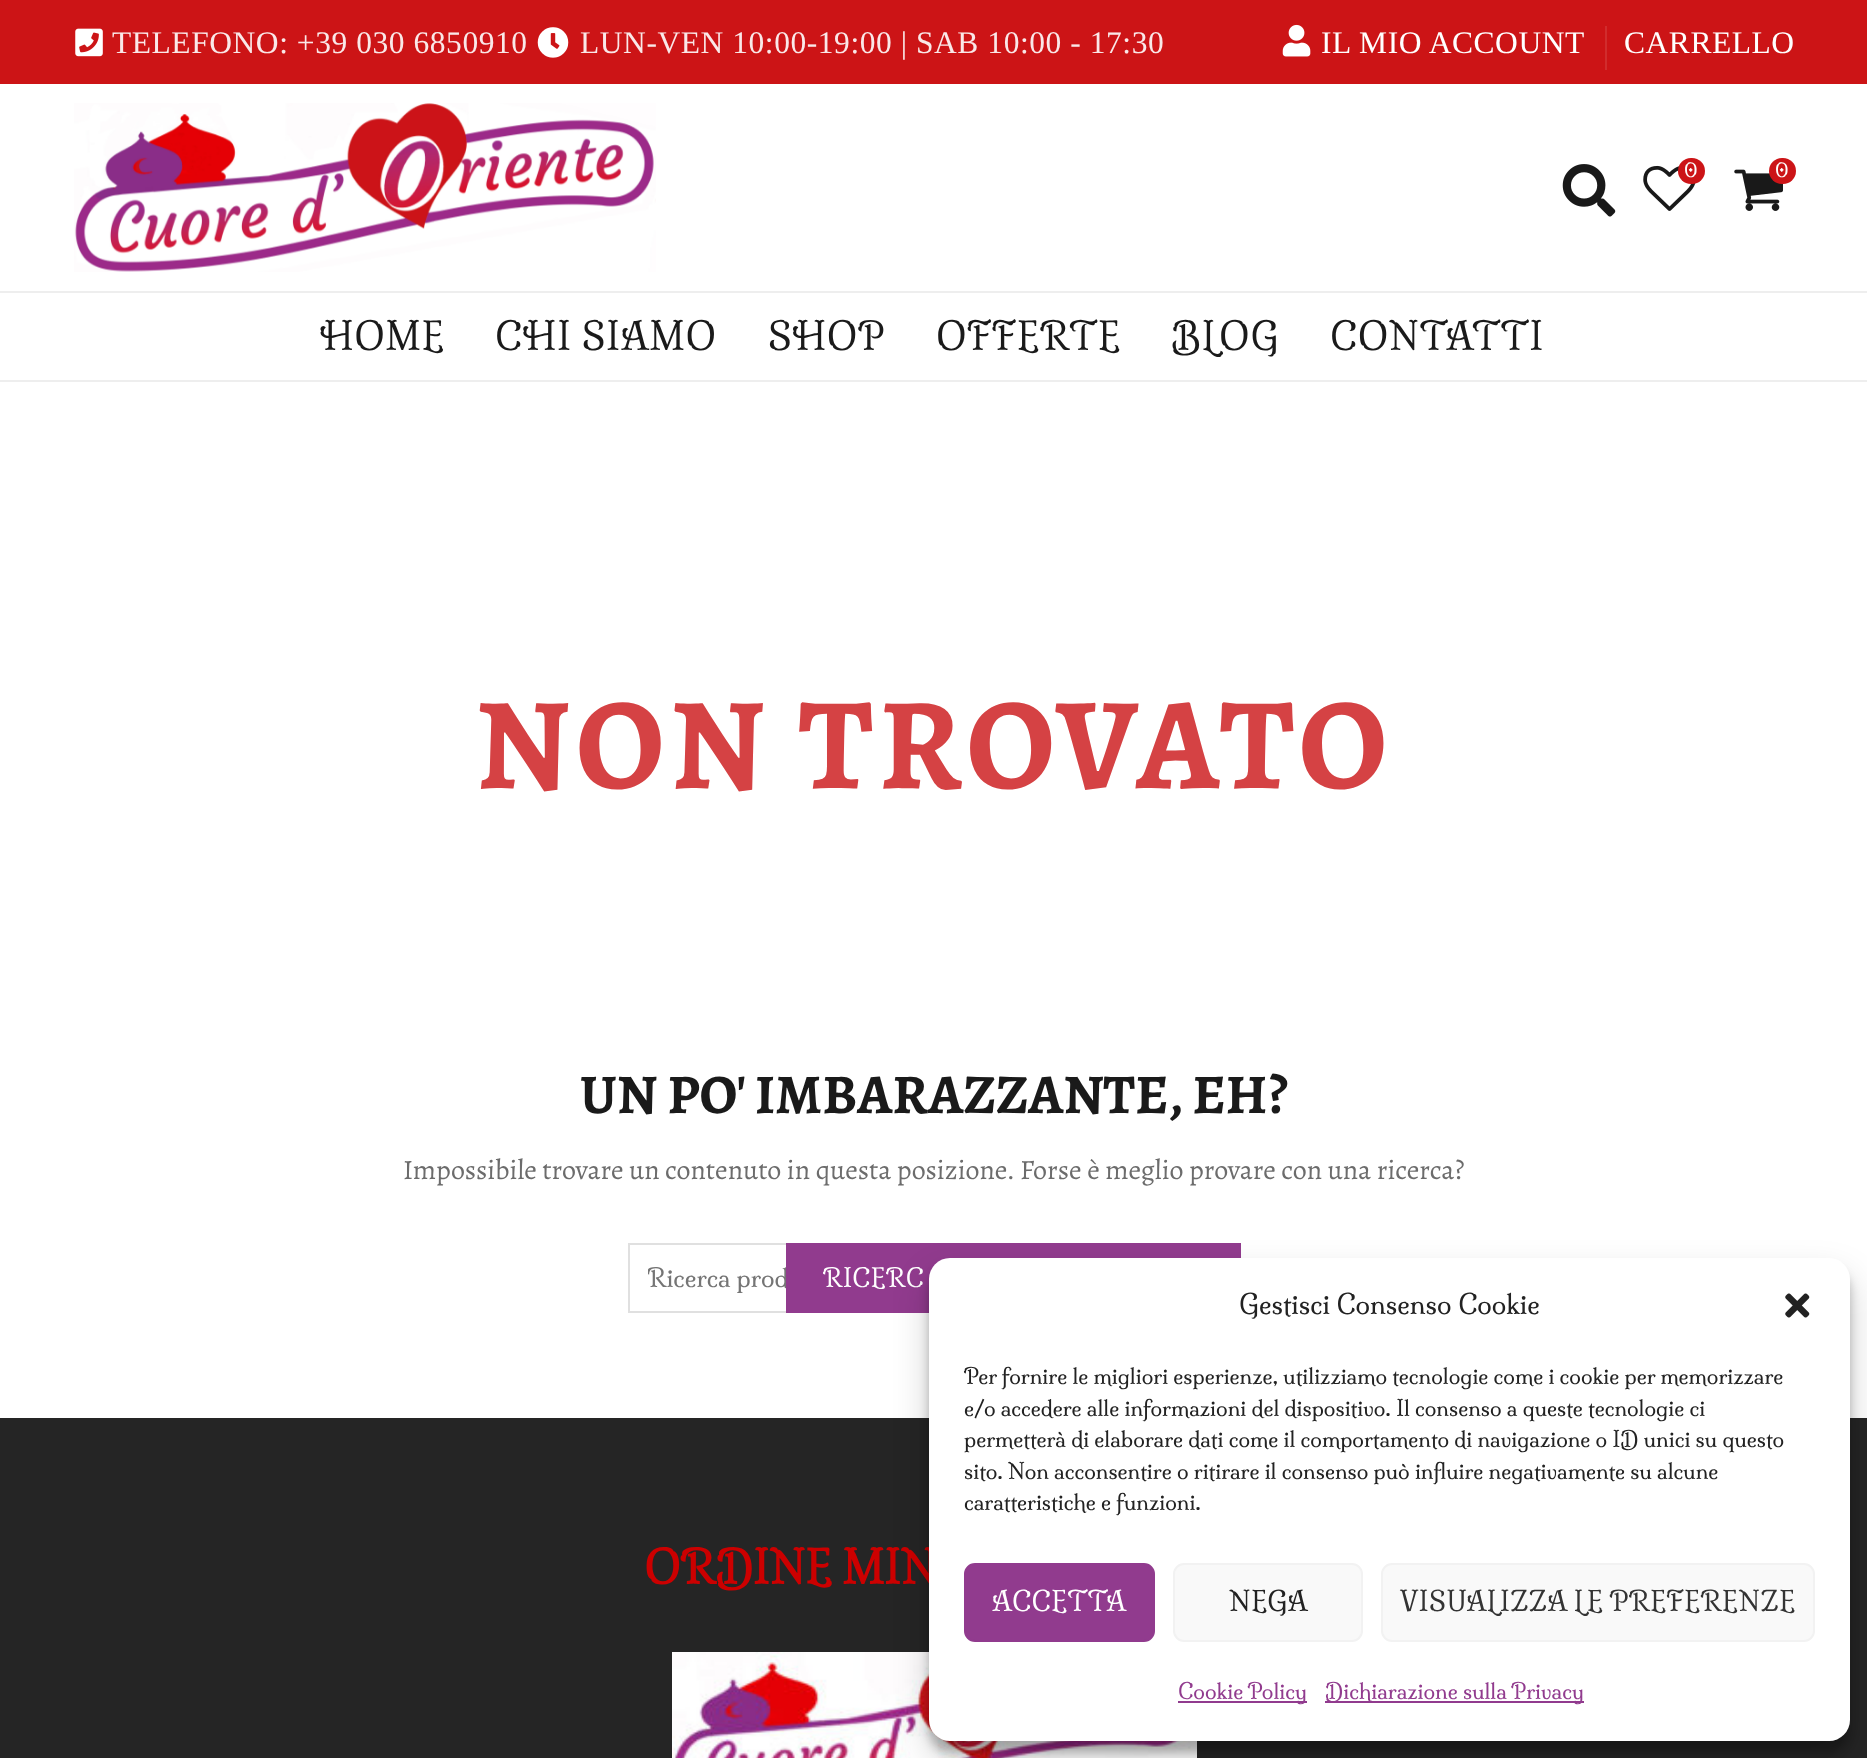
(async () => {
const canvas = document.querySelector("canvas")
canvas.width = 1867
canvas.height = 1758
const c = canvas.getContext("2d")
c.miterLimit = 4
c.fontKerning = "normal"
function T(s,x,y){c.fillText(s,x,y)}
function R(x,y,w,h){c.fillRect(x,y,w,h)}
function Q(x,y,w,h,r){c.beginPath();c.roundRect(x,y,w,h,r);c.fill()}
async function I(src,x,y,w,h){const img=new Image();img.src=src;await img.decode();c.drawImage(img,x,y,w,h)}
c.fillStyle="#fff"
R(0,0,1867,1758)
c.fillStyle="#cc1416"
R(0,0,1867,84)
await I("1.png",75,28,28,29)
c.letterSpacing="0.55px"
c.font="31.5px Liberation Serif"
c.fillStyle="#fae8e8"
T("TELEFONO: +39 030 6850910",112,53)
await I("2.png",537,27,32,31)
T("LUN-VEN 10:00-19:00 | SAB 10:00 - 17:30",580,53)
await I("3.png",1282,24,29,33)
c.fillStyle="#fff"
T("IL MIO ACCOUNT",1321,53)
c.fillStyle="#d12c2d"
R(1605,26,2,44)
c.fillStyle="#fff"
T("CARRELLO",1624,53)
await I("4.png",74,103,582,169)
await I("5.png",1562,164,54,53)
await I("6.png",1643,165,53,46)
c.fillStyle="#cc1417"
Q(1678,158,27,26,13)
c.letterSpacing="0px"
c.font="18px Milonga"
c.fillStyle="#fff"
T("0",1684,177)
await I("7.png",1734,169,49,42)
c.fillStyle="#cc1417"
Q(1769,158,27,26,13)
c.fillStyle="#fff"
T("0",1775,177)
c.fillStyle="#eee"
R(0,291,1867,2)
R(0,380,1867,2)
c.letterSpacing="0.9px"
c.font="36.75px Milonga"
c.fillStyle="#1a1a1a"
T("HOME",320,350)
T("CHI SIAMO",495,350)
T("SHOP",768,350)
T("OFFERTE",936,350)
T("BLOG",1171,350)
T("CONTATTI",1330,350)
c.letterSpacing="5.25px"
c.font="bold 131.25px Alegreya"
c.fillStyle="#d54244"
T("NON TROVATO",475,788)
c.letterSpacing="0px"
c.font="bold 56px Alegreya"
c.fillStyle="#1a1a1a"
T("UN PO' IMBARAZZANTE, EH?",580,1113)
c.font="28px Alegreya"
c.fillStyle="#6c6c6c"
T("Impossibile trovare un contenuto in questa posizione. Forse è meglio provare con una ricerca?",403,1179)
c.strokeStyle="#e0e0e0"
c.lineWidth=2
c.strokeRect(629,1244,611,68)
c.save()
c.beginPath()
c.rect(648,1262,407,31)
c.clip()
c.font="24.5px Milonga"
c.fillStyle="#757575"
T("Ricerca prod",647,1287)
c.restore()
c.fillStyle="#913b8e"
R(786,1243,455,70)
c.letterSpacing="0.55px"
c.font="24.5px Milonga"
c.fillStyle="#fff"
T("RICERC",823,1287)
c.fillStyle="#252525"
R(0,1418,1867,340)
c.letterSpacing="0px"
c.font="bold 43.75px Milonga"
c.fillStyle="#c00"
T("ORDINE MIN",644,1584)
await I("8.png",672,1652,525,106)
c.fillStyle="#0000003b"
c.filter="blur(5px)"
c.beginPath()
c.roundRect(929,1269,921,483,21)
c.fill()
c.filter="none"
c.fillStyle="#00000030"
c.filter="blur(17.5px)"
c.beginPath()
c.roundRect(929,1276,921,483,21)
c.fill()
c.filter="none"
c.fillStyle="#fff"
Q(929,1258,921,483,21)
c.font="26.25px Milonga"
c.fillStyle="#222"
T("Gestisci Consenso Cookie",1239,1314)
await I("9.png",1785,1293,25,25)
c.font="21px Milonga"
T("Per fornire le migliori esperienze, utilizziamo tecnologie come i cookie per memorizzare",964,1384)
T("e/o accedere alle informazioni del dispositivo. Il consenso a queste tecnologie ci",964,1416)
T("permetterà di elaborare dati come il comportamento di navigazione o ID unici su questo",964,1447)
T("sito. Non acconsentire o ritirare il consenso può influire negativamente su alcune",964,1479)
T("caratteristiche e funzioni.",964,1510)
c.fillStyle="#913b8e"
c.beginPath()
c.roundRect(965,1564,189,77,10)
c.fill()
c.strokeStyle="#913b8e"
c.stroke()
c.letterSpacing="0.55px"
c.font="26.25px Milonga"
c.fillStyle="#fff"
T("ACCETTA",992,1611)
c.fillStyle="#f9f9f9"
c.beginPath()
c.roundRect(1174,1564,188,77,10)
c.fill()
c.strokeStyle="#f2f2f2"
c.stroke()
c.fillStyle="#222"
T("NEGA",1229,1611)
c.fillStyle="#f9f9f9"
c.beginPath()
c.roundRect(1382,1564,432,77,10)
c.fill()
c.stroke()
c.fillStyle="#333"
T("VISUALIZZA LE PREFERENZE",1400,1611)
c.fillStyle="#913b8e"
R(1178,1701,129,2)
c.letterSpacing="0px"
c.font="21px Milonga"
T("Cookie Policy",1178,1699)
R(1325,1701,259,2)
T("Dichiarazione sulla Privacy",1325,1699)
})()
